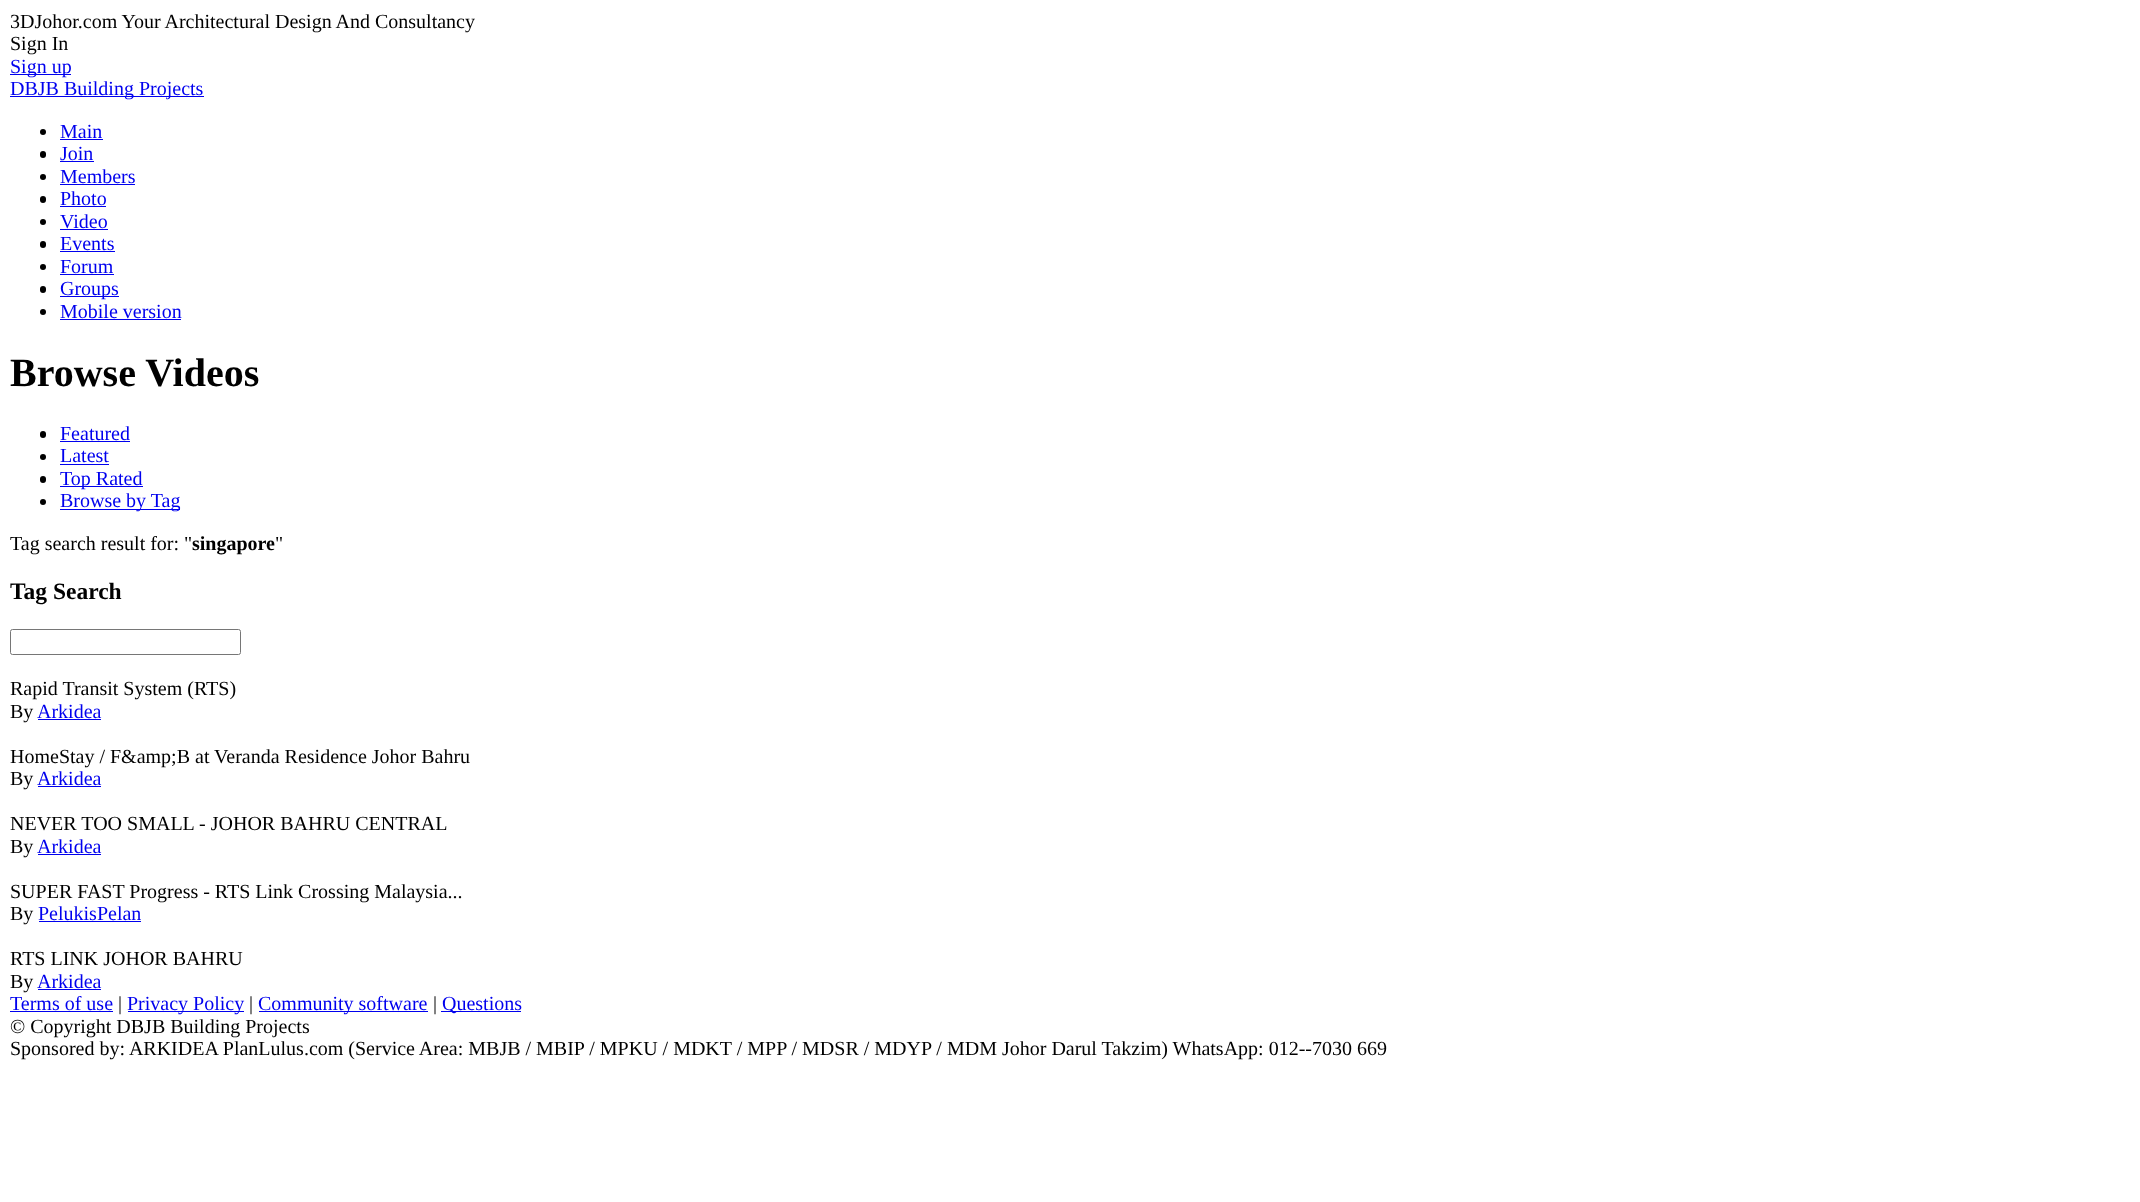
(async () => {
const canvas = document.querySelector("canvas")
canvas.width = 2140
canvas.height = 1202
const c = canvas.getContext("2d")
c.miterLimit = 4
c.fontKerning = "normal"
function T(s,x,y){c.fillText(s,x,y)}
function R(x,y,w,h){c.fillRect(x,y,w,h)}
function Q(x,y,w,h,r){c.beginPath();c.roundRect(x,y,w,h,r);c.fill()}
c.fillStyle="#fff"
R(0,0,2140,1202)
c.font="20px Liberation Serif"
c.fillStyle="#000"
T("3DJohor.com Your Architectural Design And Consultancy",10,28)
T("Sign In",10,50)
c.fillStyle="#00e"
R(10,74,61,1)
T("Sign up",10,73)
R(10,96,194,1)
T("DBJB Building Projects",10,95)
c.fillStyle="#000"
c.beginPath()
c.arc(43,132,3,0,7)
c.fill()
c.fillStyle="#00e"
T("Main",60,138)
R(60,139,43,1)
c.fillStyle="#000"
Q(40,151,6,7,3)
c.fillStyle="#00e"
T("Join",60,160)
R(60,161,34,1)
c.fillStyle="#000"
c.beginPath()
c.arc(43,177,3,0,7)
c.fill()
c.fillStyle="#00e"
T("Members",60,183)
R(60,184,75,1)
c.fillStyle="#000"
Q(40,196,6,7,3)
c.fillStyle="#00e"
T("Photo",60,205)
R(60,206,46,1)
c.fillStyle="#000"
c.beginPath()
c.arc(43,222,3,0,7)
c.fill()
c.fillStyle="#00e"
T("Video",60,228)
R(60,229,48,1)
c.fillStyle="#000"
Q(40,241,6,7,3)
c.fillStyle="#00e"
T("Events",60,250)
R(60,251,55,1)
c.fillStyle="#000"
c.beginPath()
c.arc(43,267,3,0,7)
c.fill()
c.fillStyle="#00e"
T("Forum",60,273)
R(60,274,54,1)
c.fillStyle="#000"
Q(40,286,6,7,3)
c.fillStyle="#00e"
R(60,296,59,1)
T("Groups",60,295)
c.fillStyle="#000"
c.beginPath()
c.arc(43,312,3,0,7)
c.fill()
c.fillStyle="#00e"
T("Mobile version",60,318)
R(60,319,121,1)
c.font="bold 40px Liberation Serif"
c.fillStyle="#000"
T("Browse Videos",10,386)
Q(40,431,6,7,3)
c.font="20px Liberation Serif"
c.fillStyle="#00e"
T("Featured",60,440)
R(60,441,70,1)
c.fillStyle="#000"
c.beginPath()
c.arc(43,457,3,0,7)
c.fill()
c.fillStyle="#00e"
T("Latest",60,462)
R(60,464,49,1)
c.fillStyle="#000"
Q(40,476,6,7,3)
c.fillStyle="#00e"
R(60,486,83,1)
T("Top Rated",60,485)
c.fillStyle="#000"
c.beginPath()
c.arc(43,502,3,0,7)
c.fill()
c.fillStyle="#00e"
R(60,509,120,1)
T("Browse by Tag",60,507)
c.fillStyle="#000"
T("Tag search result for: \"",10,550)
c.font="bold 20px Liberation Serif"
T("singapore",192,550)
c.font="20px Liberation Serif"
T("\"",275,550)
c.font="bold 23.5px Liberation Serif"
T("Tag Search",10,599)
c.beginPath()
c.roundRect(10.5,629.5,230,25,2)
c.strokeStyle="#767676"
c.stroke()
c.font="20px Liberation Serif"
T("Rapid Transit System (RTS)",10,695)
T("By",10,718)
c.fillStyle="#00e"
T("Arkidea",37,718)
R(38,719,63,1)
c.fillStyle="#000"
T("HomeStay / F&amp;B at Veranda Residence Johor Bahru",10,763)
T("By",10,785)
c.fillStyle="#00e"
T("Arkidea",37,785)
R(38,786,63,1)
c.fillStyle="#000"
T("NEVER TOO SMALL - JOHOR BAHRU CENTRAL",10,830)
T("By",10,853)
c.fillStyle="#00e"
T("Arkidea",37,853)
R(38,854,63,1)
c.fillStyle="#000"
T("SUPER FAST Progress - RTS Link Crossing Malaysia...",10,898)
T("By",10,920)
c.fillStyle="#00e"
T("PelukisPelan",38,920)
R(39,921,102,1)
c.fillStyle="#000"
T("RTS LINK JOHOR BAHRU",10,965)
T("By",10,988)
c.fillStyle="#00e"
T("Arkidea",37,988)
R(38,989,63,1)
T("Terms of use",10,1010)
R(10,1011,103,1)
c.fillStyle="#000"
T("|",118,1010)
c.fillStyle="#00e"
R(128,1011,116,1)
T("Privacy Policy",127,1010)
c.fillStyle="#000"
T("|",249,1010)
c.fillStyle="#00e"
R(259,1011,169,1)
T("Community software",258,1010)
c.fillStyle="#000"
T("|",433,1010)
c.fillStyle="#00e"
R(441,1011,80,1)
T("Questions",442,1010)
c.fillStyle="#000"
T("© Copyright DBJB Building Projects",10,1033)
T("Sponsored by: ARKIDEA PlanLulus.com (Service Area: MBJB / MBIP / MPKU / MDKT / MPP / MDSR / MDYP / MDM Johor Darul Takzim) WhatsApp: 012--7030 669",10,1055)
})()
